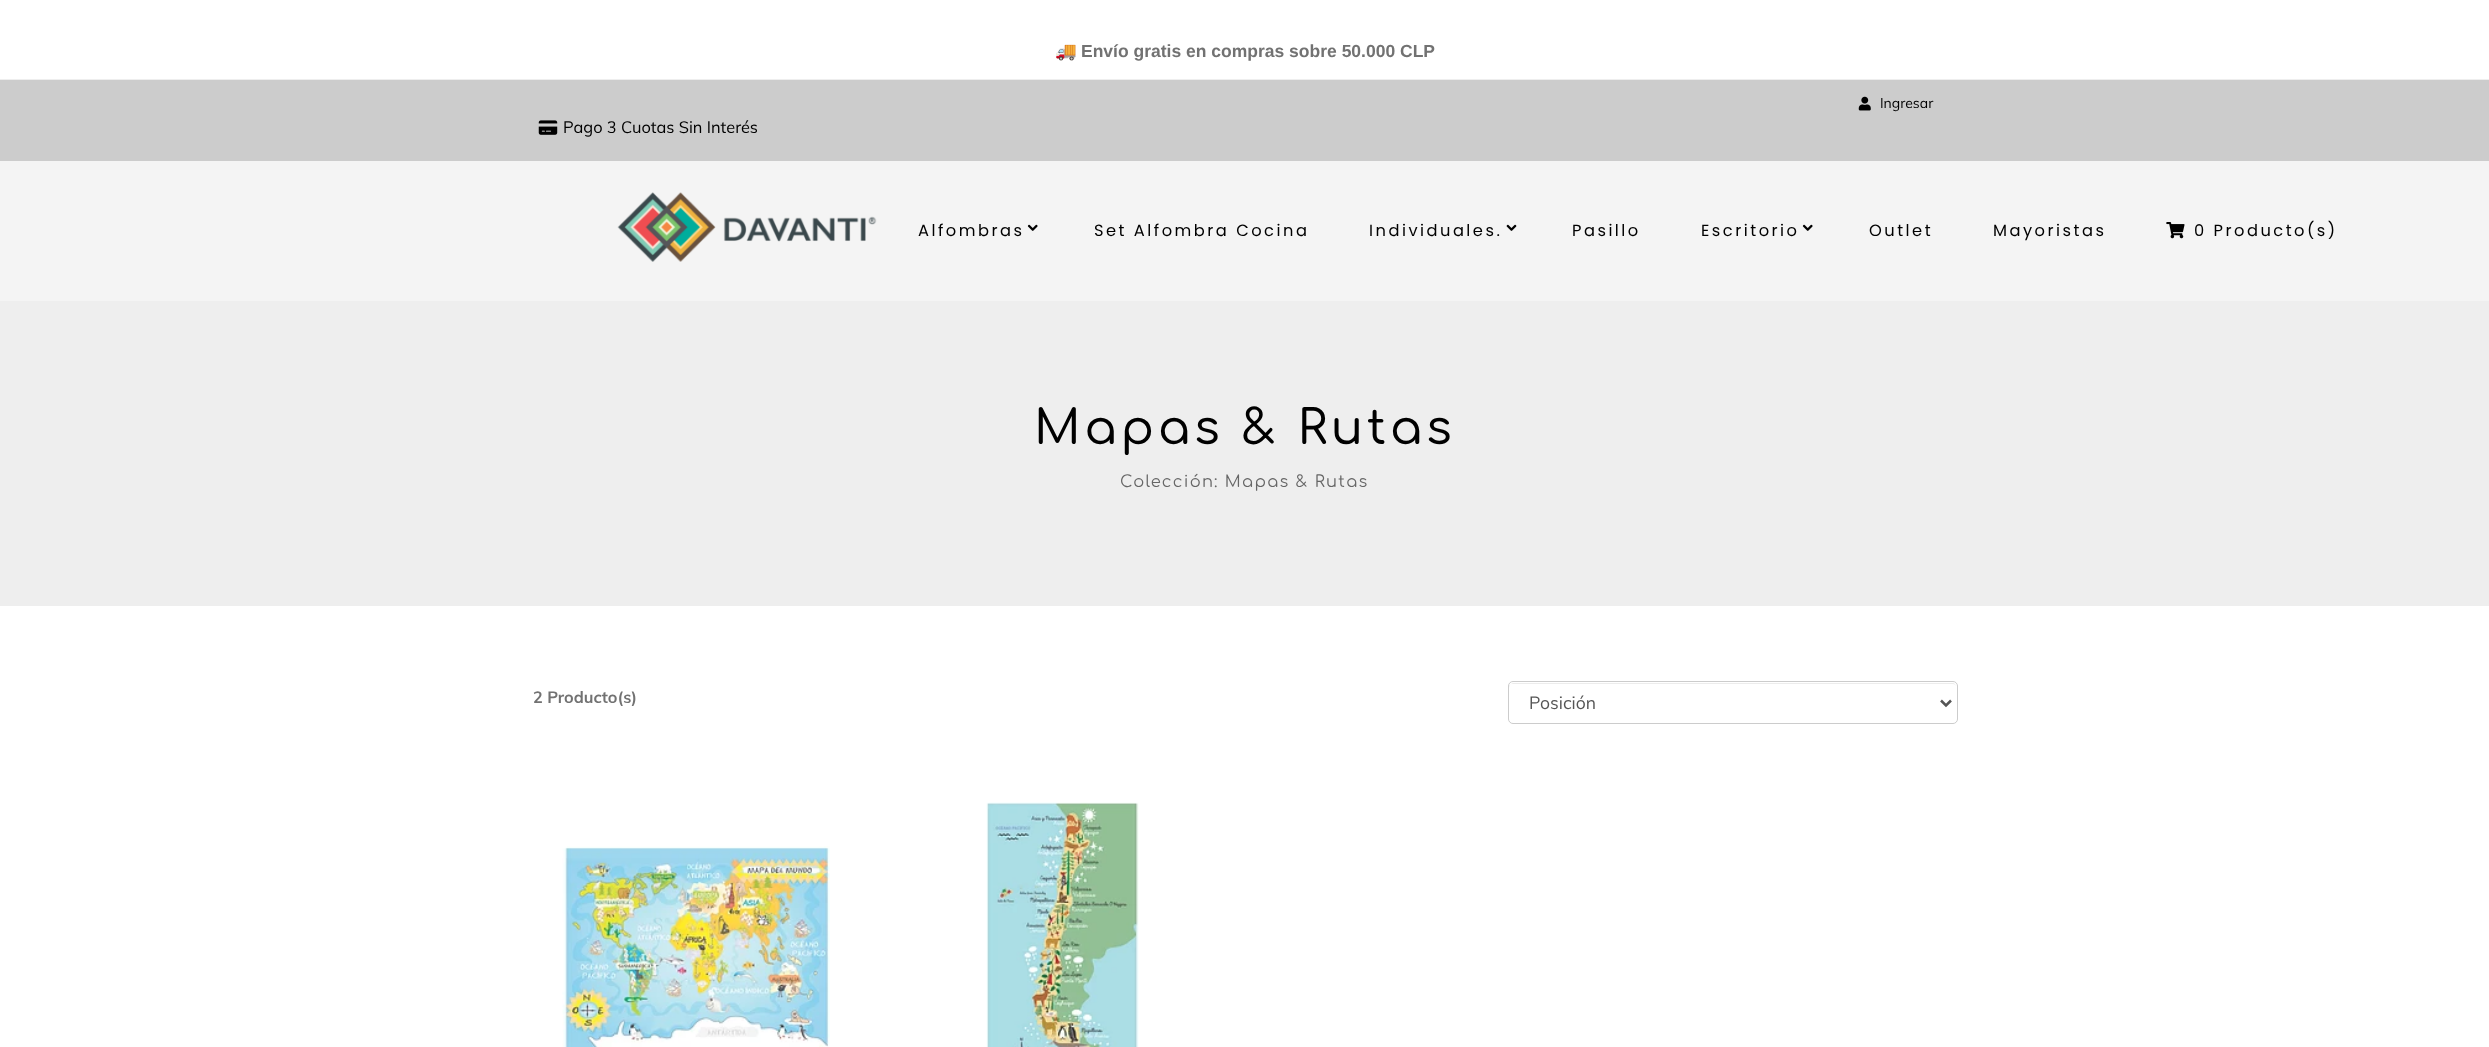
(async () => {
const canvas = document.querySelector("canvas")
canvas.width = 2489
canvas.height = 1047
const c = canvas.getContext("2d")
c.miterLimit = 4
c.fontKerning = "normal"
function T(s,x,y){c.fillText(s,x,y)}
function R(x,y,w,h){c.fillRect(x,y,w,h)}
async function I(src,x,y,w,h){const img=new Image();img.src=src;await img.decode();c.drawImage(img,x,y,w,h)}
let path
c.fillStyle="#fff"
R(0,0,2489,1047)
c.fillStyle="#eee"
R(0,79,2489,1)
c.font="bold 17.5px Noto Color Emoji"
c.fillStyle="#727272"
T("🚚",1055,57)
c.font="bold 17.5px Liberation Sans"
T("Envío gratis en compras sobre 50.000 CLP",1081,57)
c.fillStyle="#ccc"
R(0,80,2489,81)
await I("1.png",1858,96,13,15)
c.font="14px Muli"
c.fillStyle="#000"
T("Ingresar",1880,108)
await I("2.png",538,120,20,15)
c.font="16.4px Muli"
T("Pago 3 Cuotas Sin Interés",563,133)
c.fillStyle="#f4f4f4"
R(0,161,2489,140)
await I("3.png",617,192,260,70)
c.letterSpacing="2.5px"
c.font="16.25px Poppins"
c.fillStyle="#000"
T("Alfombras",918,236)
await I("4.png",1027,224,11,7)
T("Set Alfombra Cocina",1094,236)
T("Individuales.",1369,236)
await I("5.png",1506,224,11,7)
T("Pasillo",1572,236)
T("Escritorio",1701,236)
await I("4.png",1802,224,11,7)
T("Outlet",1869,236)
T("Mayoristas",1993,236)
await I("6.png",2166,222,19,17)
T("0 Producto(s)",2194,236)
c.fillStyle="#eee"
R(0,301,2489,305)
c.letterSpacing="3.9px"
c.font="500 47.5px Comfortaa"
c.fillStyle="#000"
T("Mapas & Rutas",1034,444)
c.letterSpacing="1.3px"
c.font="16.25px Comfortaa"
c.fillStyle="#666"
T("Colección: Mapas & Rutas",1120,487)
c.letterSpacing="0px"
c.font="bold 16.25px Muli"
c.fillStyle="#727272"
T("2 Producto(s)",533,703)
c.fillStyle="#ececec"
path = new Path2D("M1512 684h440c3 0 4 1 4 4c0-3-1-5-4-5h-439l-2 1l-1 1l-1 3c0-3 1-4 3-4z")
c.fill(path)
c.beginPath()
c.roundRect(1508.5,681.5,449,42,4.5)
c.strokeStyle="#ccc"
c.stroke()
path = new Path2D("M1941 700.5l5 5l5-5")
c.strokeStyle="#555"
c.lineWidth=2.5
c.stroke(path)
c.font="17.5px Muli"
c.fillStyle="#555"
T("Posición",1529,709)
await I("7.png",562,846,268,201)
await I("8.png",986,802,153,245)
})()
